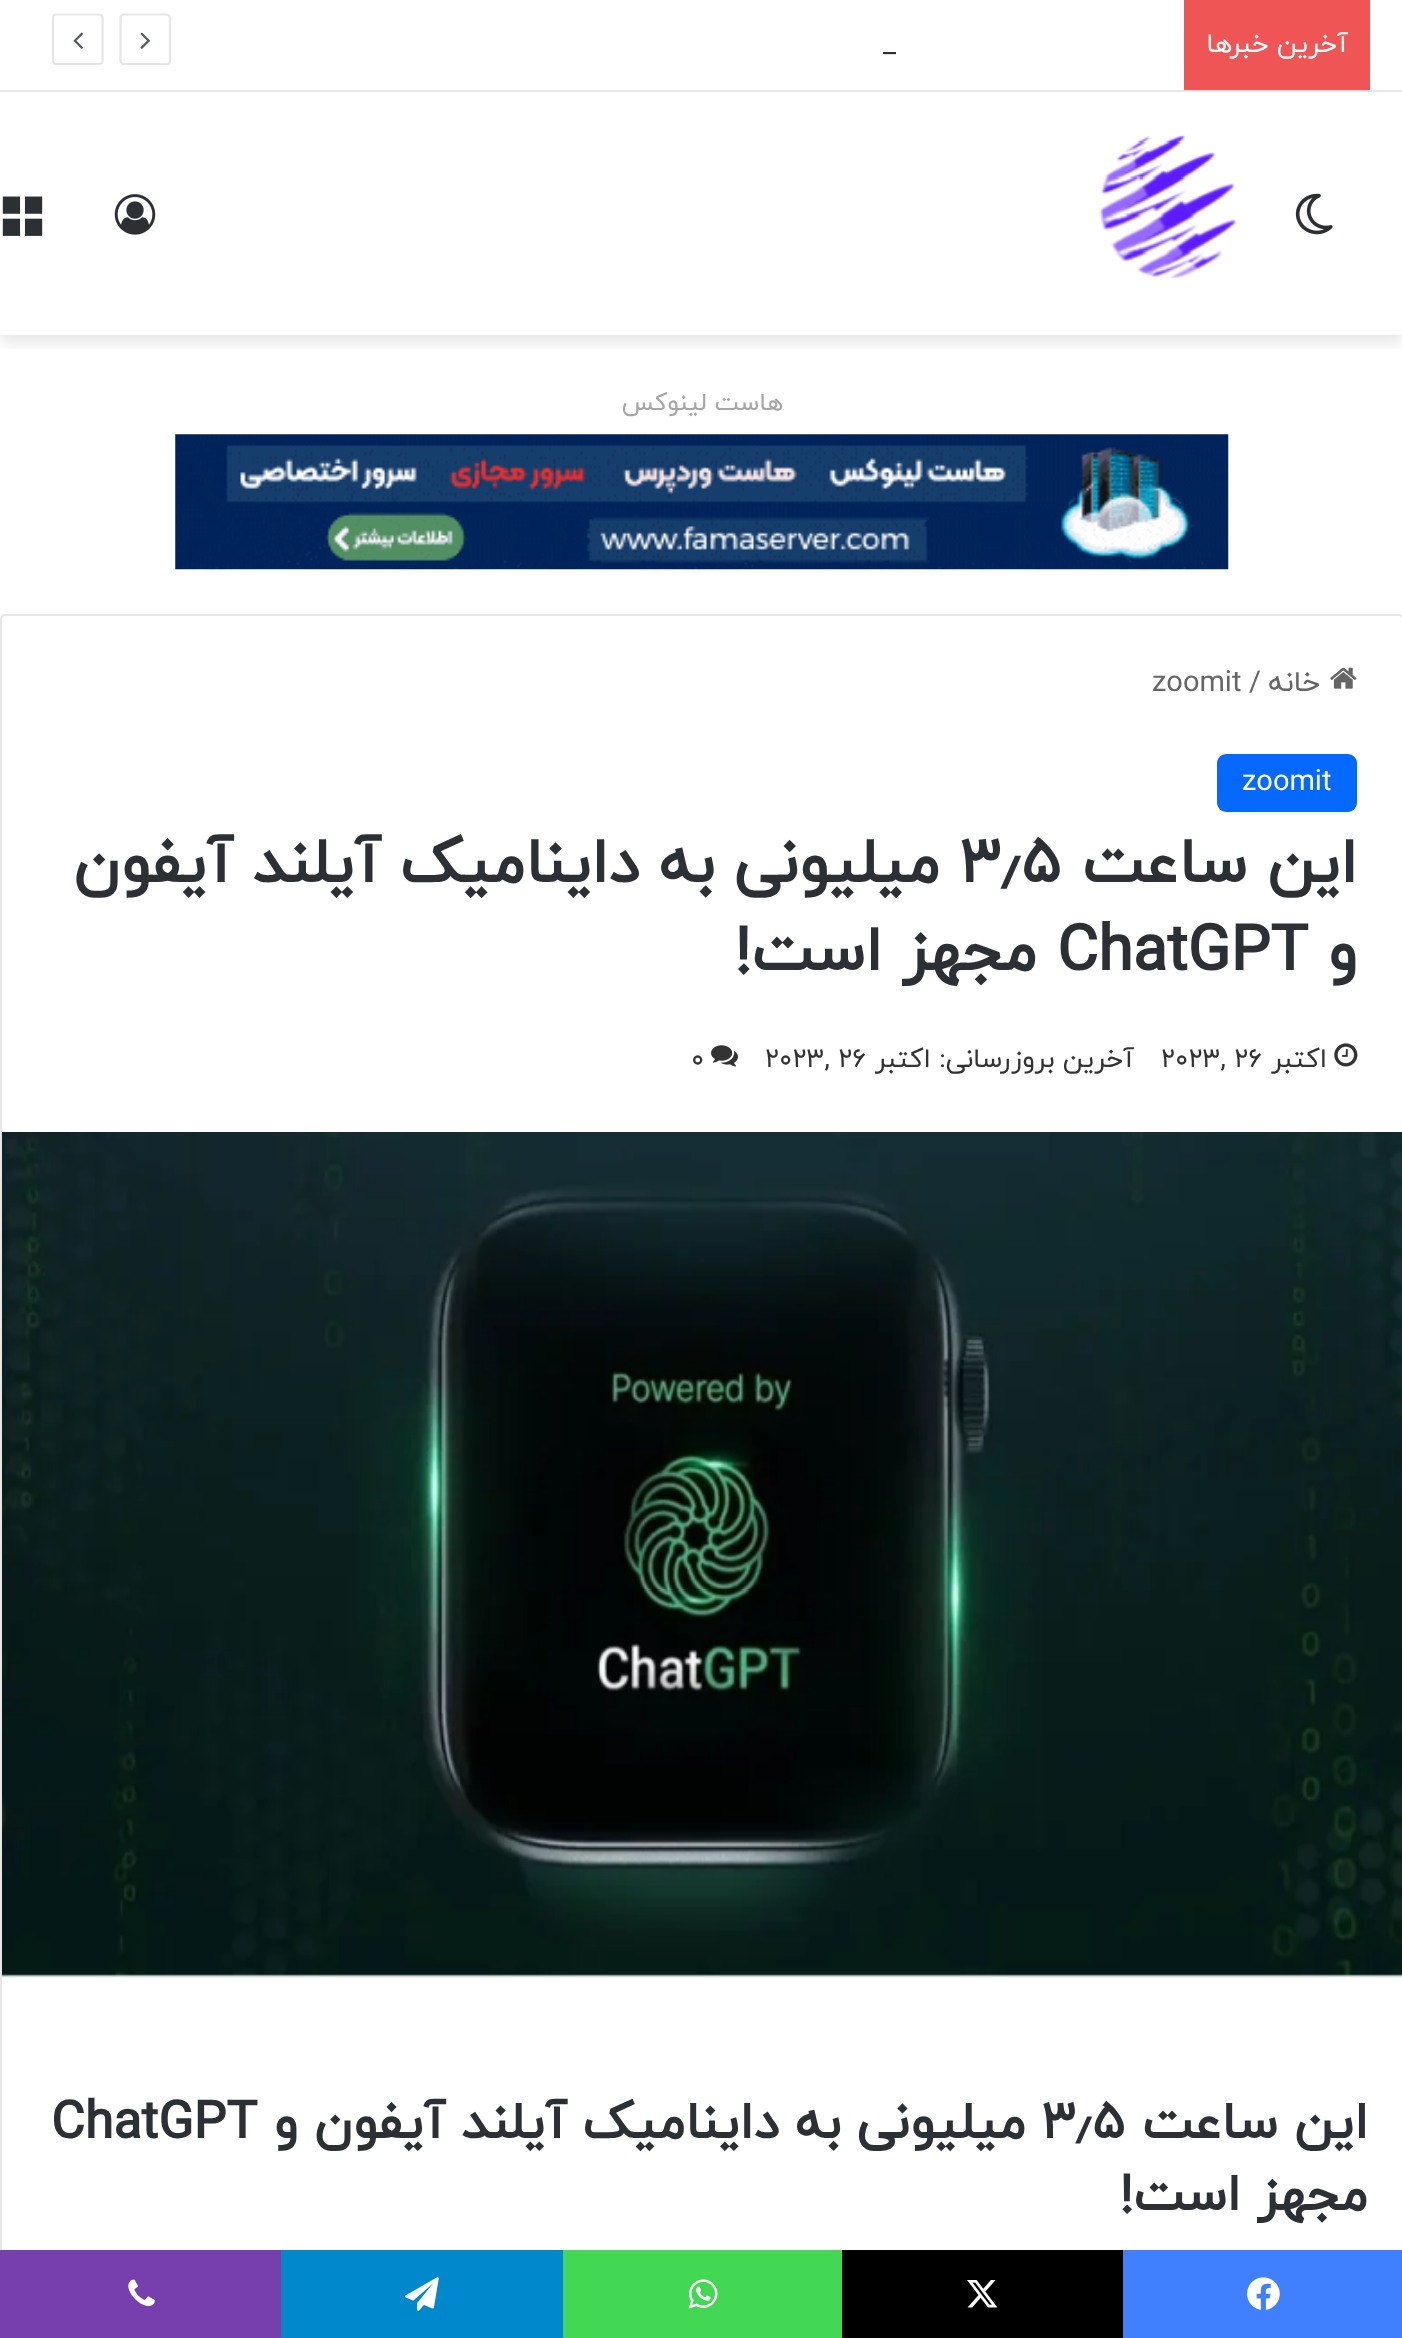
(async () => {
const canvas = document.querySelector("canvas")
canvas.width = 1402
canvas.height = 2338
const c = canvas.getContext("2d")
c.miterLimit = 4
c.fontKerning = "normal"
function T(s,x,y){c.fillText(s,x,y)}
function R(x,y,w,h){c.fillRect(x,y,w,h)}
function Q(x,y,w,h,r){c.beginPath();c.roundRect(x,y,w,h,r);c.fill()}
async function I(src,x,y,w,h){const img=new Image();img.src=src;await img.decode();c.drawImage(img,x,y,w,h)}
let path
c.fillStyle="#fff"
R(0,0,1402,2338)
c.save()
c.beginPath()
c.rect(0,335,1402,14)
c.clip()
c.fillStyle="#0000001a"
c.filter="blur(8px)"
c.beginPath()
c.rect(0,99,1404,243)
c.fill()
c.filter="none"
c.restore()
R(8,89,1388,1)
c.fillStyle="#e6e6e6"
R(0,90,1402,2)
c.fillStyle="#f05555"
R(1184,0,186,90)
c.direction="rtl"
c.font="27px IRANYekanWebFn"
c.fillStyle="#fff"
T("آخرین خبرها",1348,52)
c.direction="ltr"
c.font="29px IRANYekanWebFn"
c.fillStyle="#2c2f34"
T("_",883,52)
path = new Path2D("M166.5 64h-42.5c-2 0-3.5-1.5-3.5-3v-43c0-2 1.5-3.5 3.5-3.5h42.5c2 0 3.5 1.5 3.5 3.5v43c0 1.5-1.5 3-3.5 3z")
c.strokeStyle="#e6e6e6"
c.lineWidth=2.2
c.stroke(path)
await I("1.png",140,32,10,17)
path = new Path2D("M99 64h-43c-1.5 0-3-1.5-3-3v-43c0-2 1.5-3.5 3-3.5h43c2 0 3.5 1.5 3.5 3.5v43c0 1.5-1.5 3-3.5 3z")
c.stroke(path)
await I("2.png",73,32,10,17)
await I("3.png",1295,193,38,42)
await I("4.png",1099,134,138,145)
await I("5.png",114,194,42,41)
await I("6.png",2,196,41,40)
c.direction="rtl"
c.font="24.75px IRANYekanWebFn"
c.fillStyle="#a5a5a5"
T("هاست لینوکس",783,410)
await I("7.png",175,434,1054,136)
c.beginPath()
c.roundRect(1,615,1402,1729,4)
c.lineWidth=2
c.stroke()
await I("8.png",1330,667,27,22)
c.font="29px IRANYekanWebFn"
c.fillStyle="#666"
T("خانه",1320,691)
c.direction="ltr"
T("/",1249,691)
T("zoomit",1152,691)
c.fillStyle="#0669ff"
Q(1217,754,140,58,9)
c.fillStyle="#fff"
T("zoomit",1242,790)
c.direction="rtl"
c.font="bold 63px IRANYekanWebFn"
c.fillStyle="#2c2f34"
T("این ساعت",1357,882)
c.direction="ltr"
T("۳٫۵",960,882)
c.direction="rtl"
T("میلیونی به داینامیک آیلند آیفون",940,882)
T("و",1357,970)
c.direction="ltr"
T("ChatGPT",1057,970)
c.direction="rtl"
T("مجهز است!",1037,970)
await I("9.png",1334,1043,24,24)
c.font="27px IRANYekanWebFn"
c.fillStyle="#333"
T("اکتبر",1327,1067)
c.direction="ltr"
T("2023, 26",1161,1067)
c.direction="rtl"
T("آخرین بروزرسانی: اکتبر",1134,1067)
c.direction="ltr"
T("2023, 26",765,1067)
await I("10.png",711,1045,27,22)
T("0",691,1067)
await I("11.png",2,1132,1400,846)
c.direction="rtl"
c.font="bold 51.75px IRANYekanWebFn"
c.fillStyle="#2c2f34"
T("این ساعت",1368,2138)
c.direction="ltr"
T("۳٫۵",1042,2138)
c.direction="rtl"
T("میلیونی به داینامیک آیلند آیفون و",1026,2138)
c.direction="ltr"
T("ChatGPT",51,2138)
c.direction="rtl"
T("مجهز است!",1368,2210)
c.fillStyle="#4080ff"
R(1123,2250,279,88)
await I("12.png",1247,2277,33,33)
c.fillStyle="#000"
R(842,2250,281,88)
await I("13.png",967,2280,31,28)
c.fillStyle="#43d854"
R(563,2250,279,88)
await I("14.png",688,2279,30,30)
c.fillStyle="#08c"
R(281,2250,282,88)
await I("15.png",405,2277,34,34)
c.fillStyle="#773ead"
R(0,2250,281,88)
await I("16.png",128,2279,27,28)
})()
